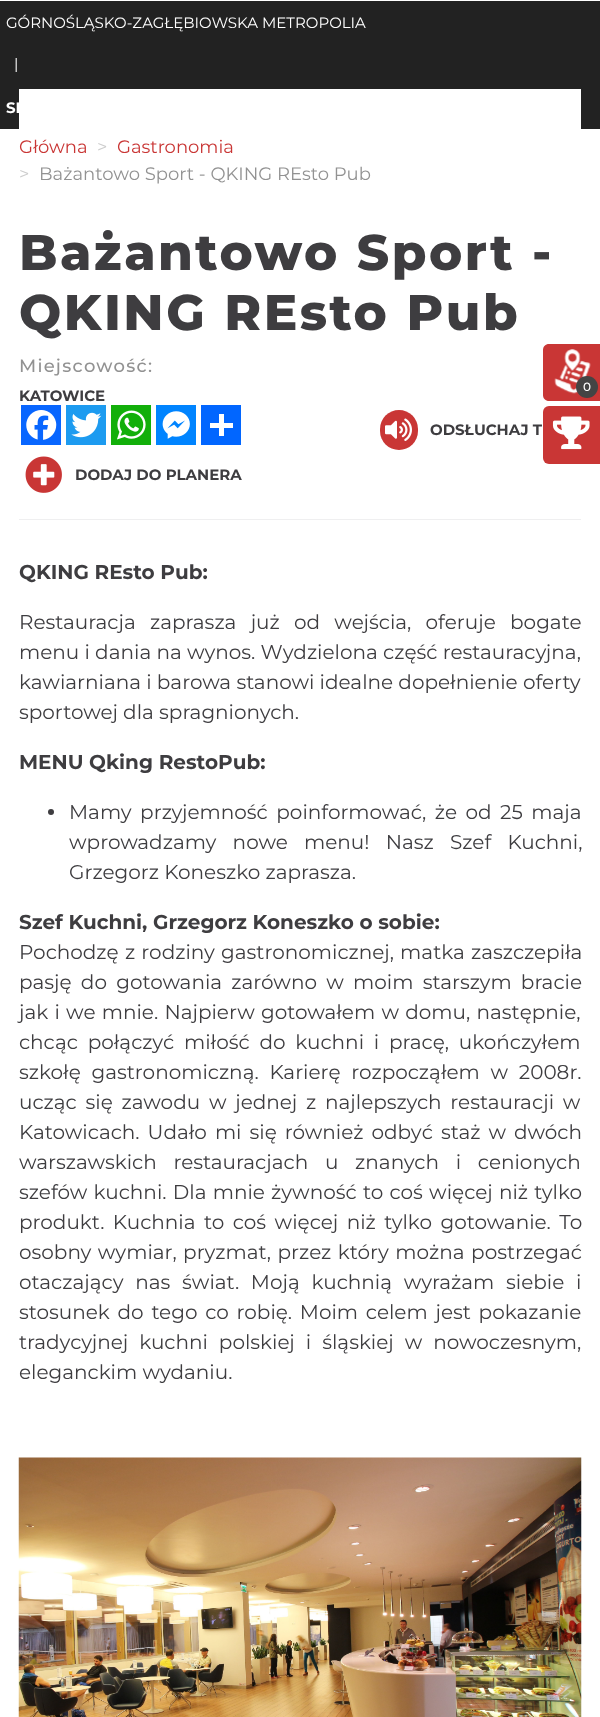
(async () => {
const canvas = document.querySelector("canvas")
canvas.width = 600
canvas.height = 1717
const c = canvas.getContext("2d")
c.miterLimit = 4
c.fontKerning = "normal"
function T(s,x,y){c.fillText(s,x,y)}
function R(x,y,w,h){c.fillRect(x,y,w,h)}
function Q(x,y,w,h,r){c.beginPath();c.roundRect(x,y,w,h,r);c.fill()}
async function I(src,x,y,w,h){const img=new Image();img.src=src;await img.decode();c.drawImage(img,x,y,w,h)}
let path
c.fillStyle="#fff"
R(0,0,600,1717)
c.fillStyle="#222"
R(0,1,600,128)
c.font="15px Montserrat"
c.fillStyle="#fff"
T("GÓRNOŚLĄSKO-ZAGŁĘBIOWSKA METROPOLIA",6,28)
T("|",14,69)
c.font="bold 15px Montserrat"
T("SL",6,113)
R(19,89,562,40)
c.font="18px Montserrat"
c.fillStyle="#c93635"
T("Główna",19,153)
c.fillStyle="#ccc"
T(">",97,153)
c.fillStyle="#c93635"
T("Gastronomia",117,153)
c.fillStyle="#ccc"
T(">",19,180)
c.fillStyle="#929292"
T("Bażantowo Sport - QKING REsto Pub",39,180)
c.letterSpacing="2.5px"
c.font="800 50px Montserrat"
c.fillStyle="#3e3d40"
T("Bażantowo Sport -",19,270)
T("QKING REsto Pub",19,330)
c.fillStyle="#efeff0"
R(19,519,562,1)
c.letterSpacing="1.25px"
c.font="500 18px Montserrat"
c.fillStyle="#929292"
T("Miejscowość:",19,372)
c.letterSpacing="0px"
c.font="bold 15px Montserrat"
c.fillStyle="#3e3d40"
T("KATOWICE",19,401)
c.fillStyle="#0866ff"
R(21,405,40,40)
await I("1.png",26,410,31,30)
c.fillStyle="#1d9bf0"
R(66,405,40,40)
await I("2.png",71,412,31,26)
c.fillStyle="#12af0a"
R(111,405,40,40)
await I("3.png",117,410,29,30)
c.fillStyle="#0084ff"
R(156,405,40,40)
await I("4.png",162,411,28,28)
c.fillStyle="#0166ff"
R(201,405,40,40)
c.fillStyle="#fff"
R(219,414,5,22)
R(210,423,23,5)
c.fillStyle="#c93635"
Q(380,410,38,40,19)
await I("5.png",385,418,27,23)
c.fillStyle="#3e3d40"
T("ODSŁUCHAJ T",430,435)
await I("6.png",25,456,37,37)
T("DODAJ DO PLANERA",75,480)
c.font="bold 20px Montserrat"
T("QKING REsto Pub:",19,579)
c.wordSpacing="9px"
c.font="20px Montserrat"
T("Restauracja zaprasza już od wejścia, oferuje bogate",19,629)
c.wordSpacing="0px"
T("menu i dania na wynos. Wydzielona część restauracyjna,",19,659)
T("kawiarniana i barowa stanowi idealne dopełnienie oferty",19,689)
T("sportowej dla spragnionych.",19,719)
c.font="bold 20px Montserrat"
T("MENU Qking RestoPub:",19,769)
c.beginPath()
c.arc(51,812,3,0,7)
c.fill()
c.wordSpacing="3.25px"
c.font="20px Montserrat"
T("Mamy przyjemność poinformować, że od 25 maja",69,819)
c.wordSpacing="11px"
T("wprowadzamy nowe menu! Nasz Szef Kuchni,",69,849)
c.wordSpacing="0px"
T("Grzegorz Koneszko zaprasza.",69,879)
c.font="bold 20px Montserrat"
T("Szef Kuchni, Grzegorz Koneszko o sobie:",19,929)
c.wordSpacing="1px"
c.font="20px Montserrat"
T("Pochodzę z rodziny gastronomicznej, matka zaszczepiła",19,959)
c.wordSpacing="4px"
T("pasję do gotowania zarówno w moim starszym bracie",19,989)
c.wordSpacing="1px"
T("jak i we mnie. Najpierw gotowałem w domu, następnie,",19,1019)
c.wordSpacing="4.5px"
T("chcąc połączyć miłość do kuchni i pracę, ukończyłem",19,1049)
c.wordSpacing="5.5px"
T("szkołę gastronomiczną. Karierę rozpocząłem w 2008r.",19,1079)
c.wordSpacing="3.5px"
T("ucząc się zawodu w jednej z najlepszych restauracji w",19,1109)
c.wordSpacing="2.75px"
T("Katowicach. Udało mi się również odbyć staż w dwóch",19,1139)
c.wordSpacing="11.5px"
T("warszawskich restauracjach u znanych i cenionych",19,1169)
c.wordSpacing="1px"
T("szefów kuchni. Dla mnie żywność to coś więcej niż tylko",19,1199)
c.wordSpacing="3.25px"
T("produkt. Kuchnia to coś więcej niż tylko gotowanie. To",19,1229)
c.wordSpacing="1.25px"
T("osobny wymiar, pryzmat, przez który można postrzegać",19,1259)
c.wordSpacing="6.5px"
T("otaczający nas świat. Moją kuchnią wyrażam siebie i",19,1289)
c.wordSpacing="2.5px"
T("stosunek do tego co robię. Moim celem jest pokazanie",19,1319)
c.wordSpacing="5.75px"
T("tradycyjnej kuchni polskiej i śląskiej w nowoczesnym,",19,1349)
c.wordSpacing="0px"
T("eleganckim wydaniu.",19,1379)
await I("7.png",18,1457,564,260)
c.fillStyle="#c93635"
path = new Path2D("M549 344h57v57h-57c-3.5 0-6-2.5-6-6v-45c0-3.5 2.5-6 6-6z")
c.fill(path)
await I("8.png",554,349,37,45)
c.fillStyle="#444"
c.beginPath()
c.arc(587,387,11,0,7)
c.fill()
c.font="500 12px Montserrat"
c.fillStyle="#fff"
T("0",583,391)
c.fillStyle="#c93635"
c.beginPath()
c.roundRect(543,406,57,58,[6,0,0,6])
c.fill()
await I("9.png",552,416,38,34)
})()
